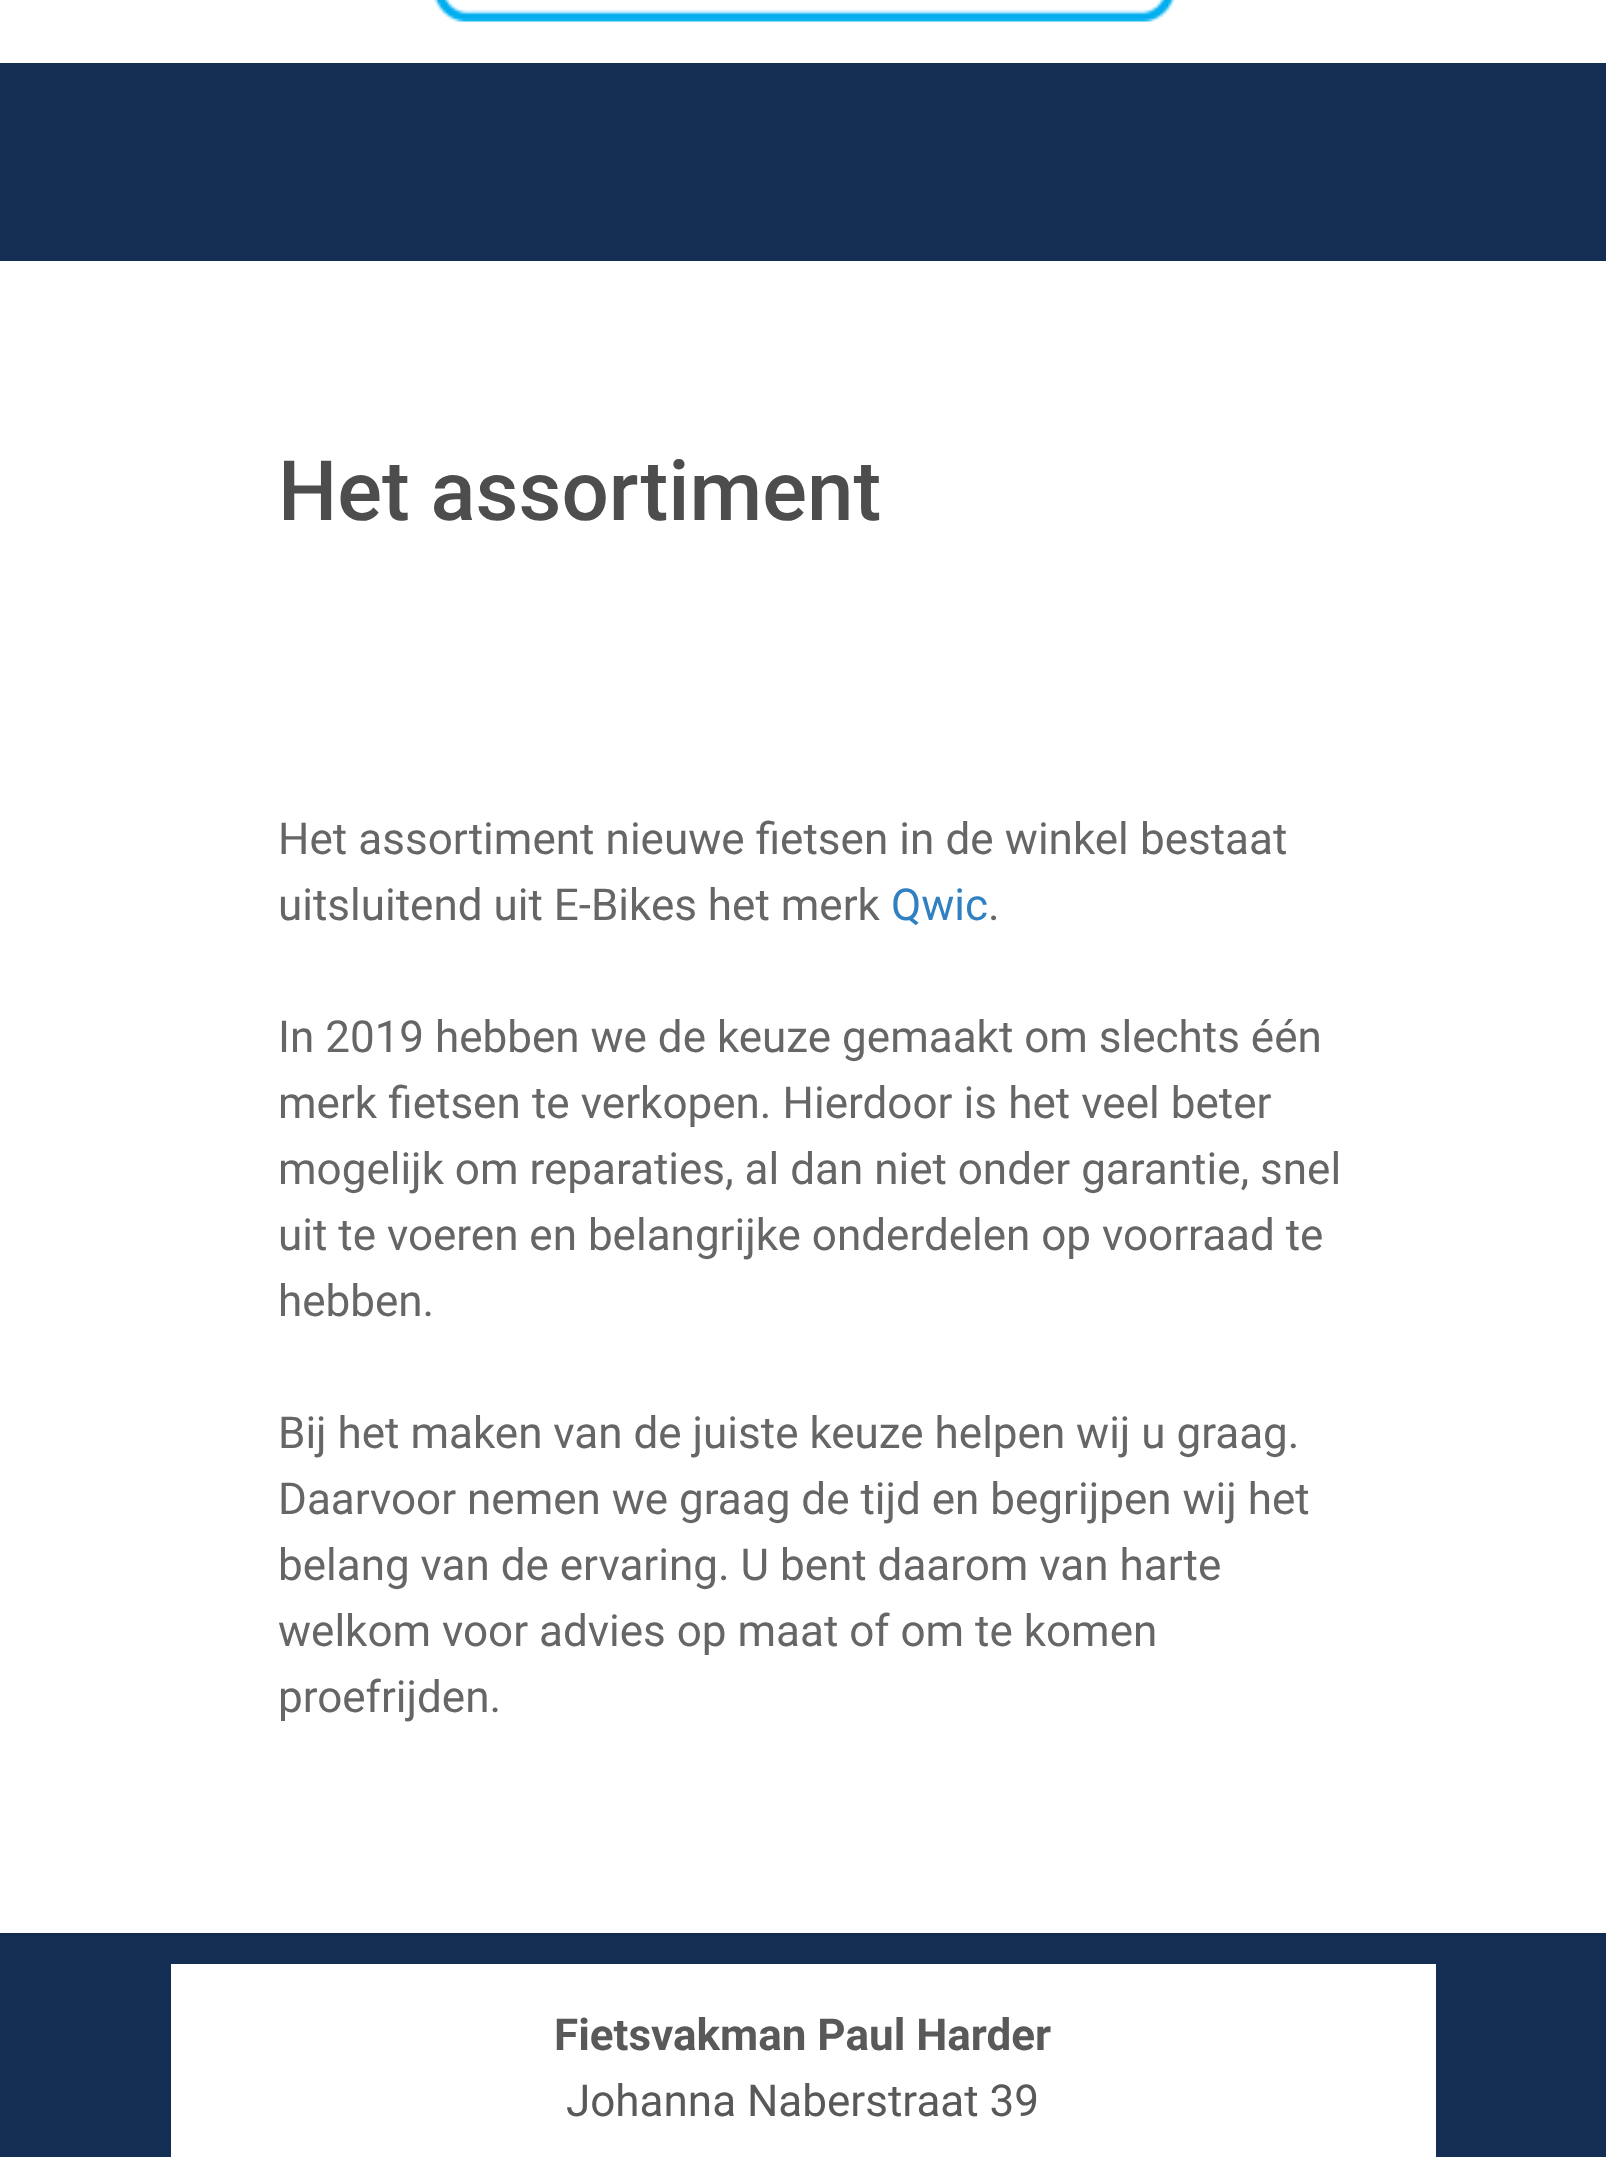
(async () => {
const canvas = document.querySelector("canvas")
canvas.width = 1606
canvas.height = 2157
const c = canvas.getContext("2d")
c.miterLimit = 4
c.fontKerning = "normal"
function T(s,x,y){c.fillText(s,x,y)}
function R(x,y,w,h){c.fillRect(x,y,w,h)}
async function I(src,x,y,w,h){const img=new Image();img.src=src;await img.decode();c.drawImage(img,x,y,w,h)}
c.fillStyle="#fff"
R(0,0,1606,2157)
await I("1.png",434,0,741,22)
c.fillStyle="#142d53"
R(0,63,1606,198)
c.font="500 83.5px Roboto"
c.fillStyle="#4d4d4d"
T("Het assortiment",278,520)
c.wordSpacing="0.25px"
c.font="44px Roboto"
c.fillStyle="#666"
T("Het assortiment nieuwe fietsen in de winkel bestaat",278,854)
c.wordSpacing="0px"
T("uitsluitend uit E-Bikes het merk",278,920)
c.fillStyle="#3180c2"
T("Qwic",891,920)
c.fillStyle="#666"
T(".",988,920)
T("In 2019 hebben we de keuze gemaakt om slechts één",278,1052)
c.wordSpacing="0.25px"
T("merk fietsen te verkopen. Hierdoor is het veel beter",278,1118)
c.wordSpacing="0px"
T("mogelijk om reparaties, al dan niet onder garantie, snel",278,1184)
T("uit te voeren en belangrijke onderdelen op voorraad te",278,1250)
T("hebben.",278,1316)
T("Bij het maken van de juiste keuze helpen wij u graag.",278,1448)
T("Daarvoor nemen we graag de tijd en begrijpen wij het",278,1514)
T("belang van de ervaring. U bent daarom van harte",278,1580)
T("welkom voor advies op maat of om te komen",278,1646)
T("proefrijden.",278,1712)
c.fillStyle="#142d53"
R(0,1936,1606,221)
c.fillStyle="#132b4f"
R(0,1933,1606,3)
c.fillStyle="#fff"
R(171,1964,1265,193)
c.font="bold 44px Roboto"
c.fillStyle="#595959"
T("Fietsvakman Paul Harder",554,2050)
c.font="44px Roboto"
T("Johanna Naberstraat 39",566,2116)
})()
